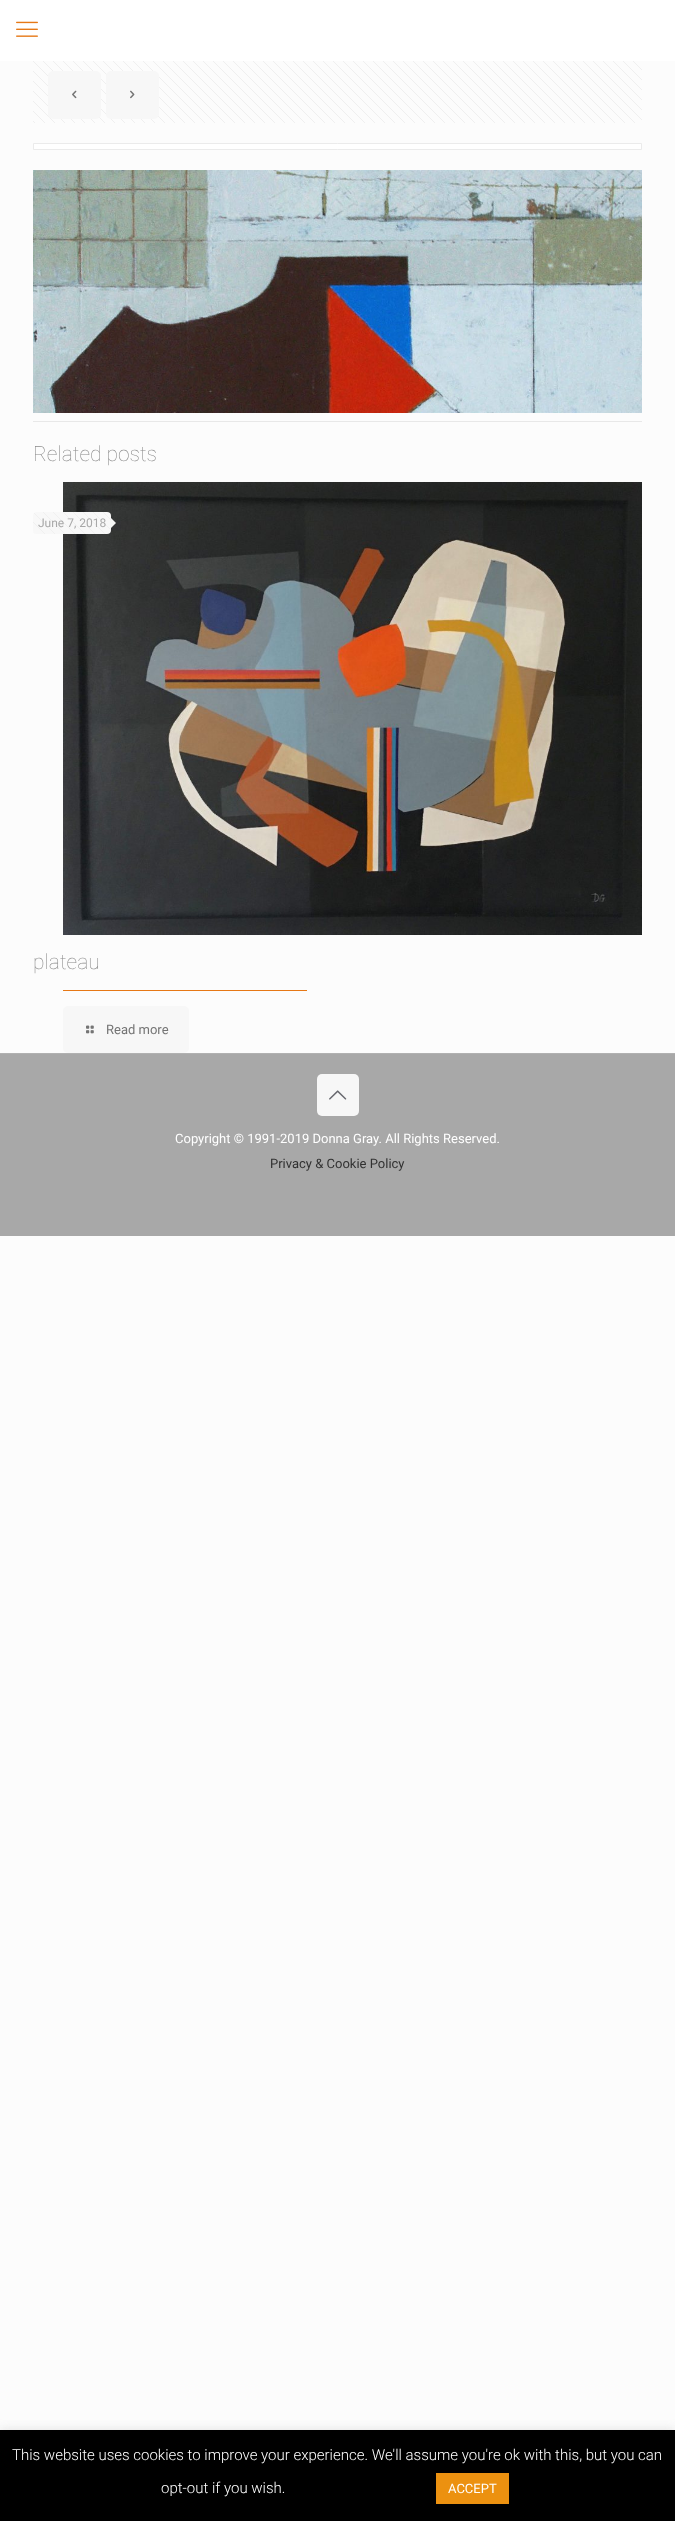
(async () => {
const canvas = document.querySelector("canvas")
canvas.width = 675
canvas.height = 2521
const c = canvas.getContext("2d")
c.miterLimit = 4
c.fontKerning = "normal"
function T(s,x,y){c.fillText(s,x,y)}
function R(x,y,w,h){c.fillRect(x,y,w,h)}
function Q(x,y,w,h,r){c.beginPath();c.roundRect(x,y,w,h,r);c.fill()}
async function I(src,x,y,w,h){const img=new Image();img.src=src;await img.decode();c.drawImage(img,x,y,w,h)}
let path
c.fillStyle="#fcfcfc"
R(0,0,675,2521)
c.fillStyle="#fff"
R(0,0,675,61)
await I("1.png",16,21,22,16)
await I("2.png",33,61,609,62)
c.fillStyle="#f7f7f7"
Q(48,71,53,48,5)
await I("3.png",72,90,5,9)
Q(106,71,53,48,5)
await I("4.png",130,90,5,9)
c.fillStyle="#fff"
c.beginPath()
c.rect(33.5,143.5,608,6)
c.fill()
c.strokeStyle="#ebebeb"
c.stroke()
await I("5.png",33,170,609,243)
c.fillStyle="#e8e8e8"
R(33,421,609,1)
c.font="100 21px Roboto"
c.fillStyle="#8a8a8a"
T("Related posts",33,461)
await I("6.png",63,482,579,453)
c.fillStyle="#f8f8f8"
Q(33,512,78,22,4)
await I("7.png",33,512,78,22)
c.font="12px Roboto"
c.fillStyle="#a8a8a8"
T("June 7, 2018",38,527)
c.fillStyle="#f8f8f8"
path = new Path2D("M111 528v-10l5 5z")
c.fill(path)
c.font="100 21px Roboto"
c.fillStyle="#8a8a8a"
T("plateau",33,969)
c.fillStyle="#e67816"
R(63,990,244,1)
c.fillStyle="#f7f7f7"
Q(63,1006,126,47,5)
await I("8.png",86,1025,8,9)
c.font="13px Roboto"
c.fillStyle="#747474"
T("Read more",106,1034)
c.fillStyle="#a8a8a8"
R(0,1054,675,182)
c.fillStyle="#b1b1b1"
R(0,1053,675,1)
c.fillStyle="#f7f7f7"
Q(317,1074,42,42,5)
await I("9.png",329,1090,18,10)
c.fillStyle="#fff"
T("Copyright © 1991-2019 Donna Gray. All Rights Reserved.",175,1143)
c.fillStyle="#313131"
T("Privacy & Cookie Policy",270,1168)
c.fillStyle="#acabab4d"
c.filter="blur(5px)"
c.beginPath()
c.rect(0,2429,675,91)
c.fill()
c.filter="none"
c.fillStyle="#000"
R(0,2430,675,91)
c.font="300 15px Roboto"
c.fillStyle="#fff"
T("This website uses cookies to improve your experience. We'll assume you're ok with this, but you can",12,2460)
T("opt-out if you wish.",161,2493)
c.fillStyle="#ec9110"
R(436,2473,73,31)
c.font="13px Roboto"
c.fillStyle="#fff"
T("ACCEPT",448,2493)
})()
